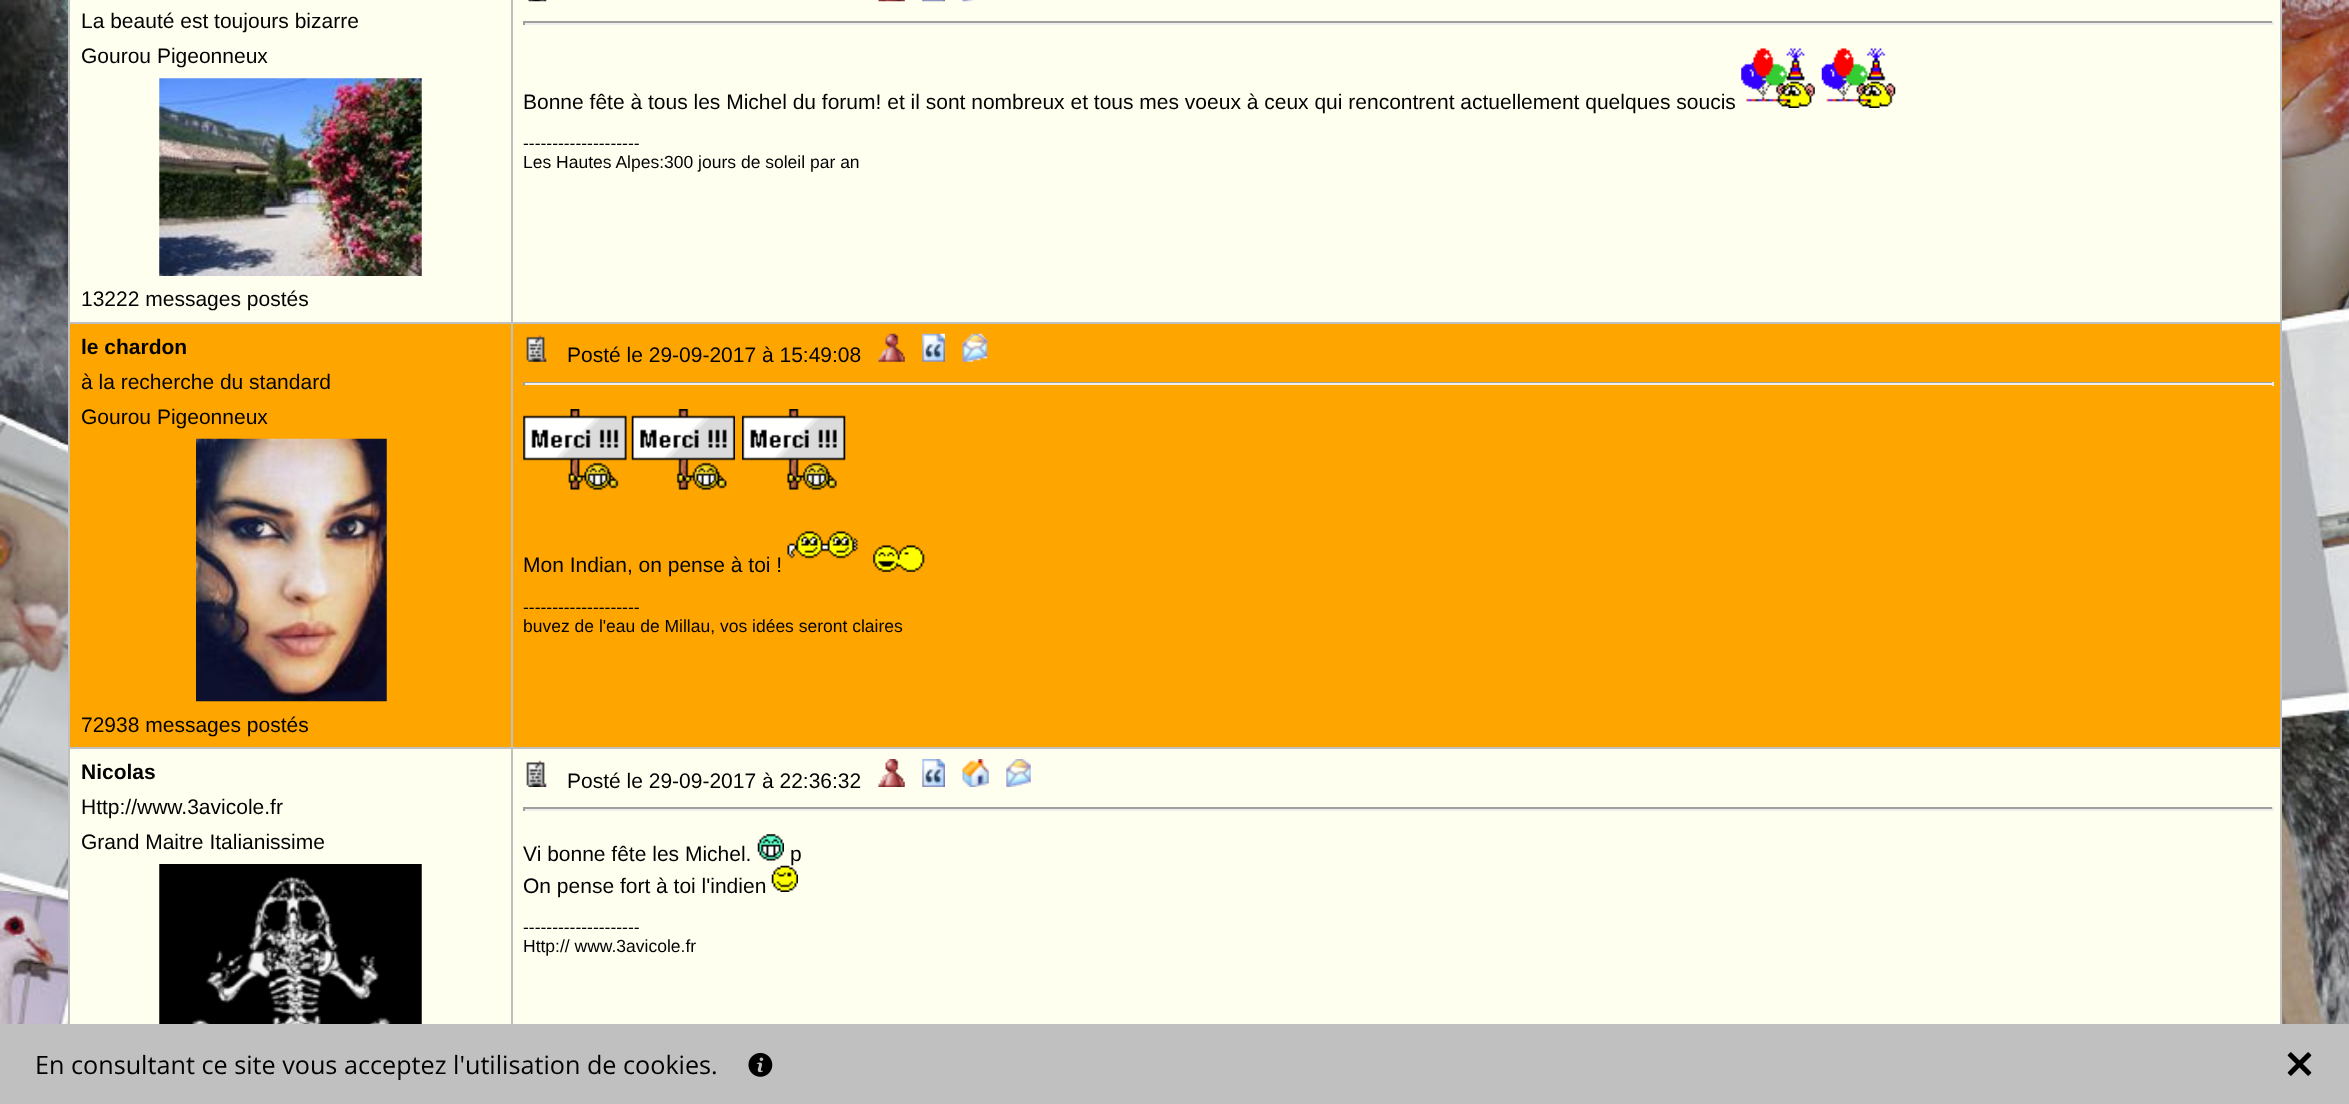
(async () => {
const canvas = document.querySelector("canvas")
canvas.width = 2349
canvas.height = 1104
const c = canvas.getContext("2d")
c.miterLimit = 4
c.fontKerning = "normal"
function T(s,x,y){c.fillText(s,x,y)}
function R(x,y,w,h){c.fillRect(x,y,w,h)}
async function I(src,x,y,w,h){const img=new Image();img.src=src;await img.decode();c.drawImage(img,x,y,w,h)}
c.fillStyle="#fff"
R(0,0,2349,1104)
await I("1.png",0,0,2349,1024)
c.fillStyle="#c0c0c0"
R(68,0,2,1024)
c.fillStyle="#fffff0"
R(70,0,441,322)
c.fillStyle="#c0c0c0"
R(511,0,2,1024)
R(70,322,443,2)
c.font="21px Liberation Sans"
c.fillStyle="#000"
T("La beauté est toujours bizarre",81,28)
T("Gourou Pigeonneux",81,63)
await I("2.png",159,78,263,198)
T("13222 messages postés",81,306)
c.fillStyle="#fffff0"
R(513,0,1767,322)
c.fillStyle="#c0c0c0"
R(2280,0,2,1024)
R(513,322,1769,2)
await I("3.png",528,0,19,2)
await I("4.png",878,0,27,2)
await I("5.png",922,0,23,2)
await I("6.png",962,0,12,2)
c.fillStyle="#9f9f9f"
R(523,21,1750,2)
c.fillStyle="#eee"
R(2272,21,2,4)
R(523,23,1750,2)
c.fillStyle="#9f9f9f"
R(523,21,2,4)
c.fillStyle="#000"
T("Bonne fête à tous les Michel du forum! et il sont nombreux et tous mes voeux à ceux qui rencontrent actuellement quelques soucis",523,109)
await I("7.png",1741,48,74,60)
await I("8.png",1821,48,75,60)
c.font="17.5px Liberation Sans"
T("--------------------",523,149)
T("Les Hautes Alpes:300 jours de soleil par an",523,168)
c.fillStyle="#ffa500"
R(70,324,441,423)
c.fillStyle="#c0c0c0"
R(70,747,2212,2)
c.font="bold 21px Liberation Sans"
c.fillStyle="#000"
T("le chardon",81,354)
c.font="21px Liberation Sans"
T("à la recherche du standard",81,389)
T("Gourou Pigeonneux",81,424)
await I("9.png",196,438,191,264)
T("72938 messages postés",81,732)
c.fillStyle="#ffa500"
R(513,324,1767,423)
await I("10.png",526,335,21,27)
c.fillStyle="#000"
T("Posté le 29-09-2017 à 15:49:08",567,362)
await I("11.png",878,333,27,29)
await I("12.png",922,333,23,29)
await I("13.png",962,333,25,29)
c.fillStyle="#9f9f9f"
R(523,382,1750,1)
c.fillStyle="#eee"
R(2272,382,2,4)
R(523,383,1750,2)
c.fillStyle="#9f9f9f"
R(523,382,2,4)
await I("14.png",523,409,104,81)
await I("15.png",631,409,104,81)
await I("16.png",742,409,104,81)
c.fillStyle="#000"
T("Mon Indian, on pense à toi !",523,572)
await I("17.png",787,531,71,28)
await I("18.png",873,545,52,27)
c.font="17.5px Liberation Sans"
T("--------------------",523,613)
T("buvez de l'eau de Millau, vos idées seront claires",523,632)
c.fillStyle="#fffff0"
R(70,749,441,275)
c.font="bold 21px Liberation Sans"
c.fillStyle="#000"
T("Nicolas",81,779)
c.font="21px Liberation Sans"
T("Http://www.3avicole.fr",81,814)
T("Grand Maitre Italianissime",81,849)
await I("19.png",159,864,263,160)
c.fillStyle="#fffff0"
R(513,749,1767,275)
await I("20.png",526,760,21,27)
c.fillStyle="#000"
T("Posté le 29-09-2017 à 22:36:32",567,788)
await I("21.png",878,759,27,28)
await I("22.png",922,759,23,28)
await I("23.png",962,759,27,28)
await I("24.png",1006,759,25,28)
c.fillStyle="#9f9f9f"
R(523,807,1750,2)
c.fillStyle="#eee"
R(2272,807,2,4)
R(523,809,1750,2)
c.fillStyle="#9f9f9f"
R(523,807,2,4)
c.fillStyle="#000"
T("Vi bonne fête les Michel.",523,861)
await I("25.png",757,834,27,27)
T("p",790,861)
T("On pense fort à toi l'indien",523,893)
await I("26.png",771,865,27,27)
c.font="17.5px Liberation Sans"
T("--------------------",523,933)
T("Http:// www.3avicole.fr",523,952)
c.fillStyle="#c0c0c0"
R(0,1024,2349,80)
c.font="25.2px Open Sans"
c.fillStyle="#000"
T("En consultant ce site vous acceptez l'utilisation de cookies.",35,1074)
await I("27.png",748,1052,25,25)
await I("28.png",2287,1052,25,24)
})()
